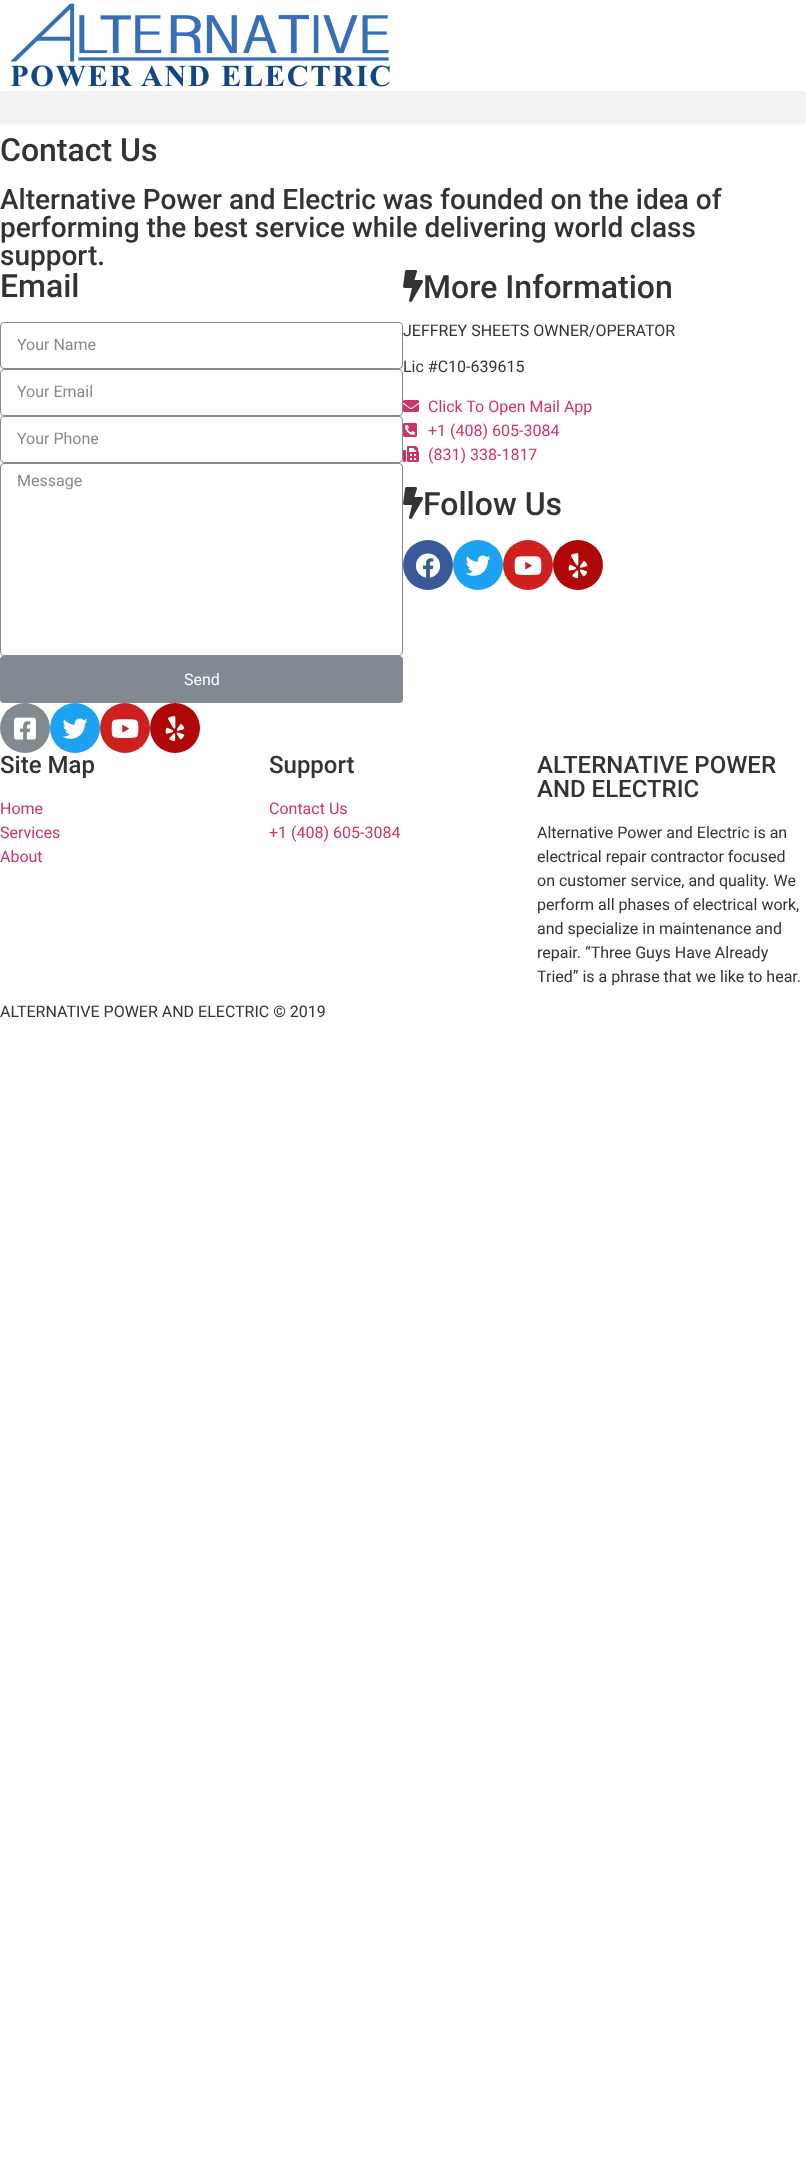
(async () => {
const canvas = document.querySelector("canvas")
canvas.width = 806
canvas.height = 2175
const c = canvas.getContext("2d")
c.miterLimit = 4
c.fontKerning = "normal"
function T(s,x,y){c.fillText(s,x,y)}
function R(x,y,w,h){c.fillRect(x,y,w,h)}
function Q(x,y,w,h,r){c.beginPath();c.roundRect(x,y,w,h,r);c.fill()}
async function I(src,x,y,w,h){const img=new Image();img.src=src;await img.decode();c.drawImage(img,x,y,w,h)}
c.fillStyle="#fff"
R(0,0,806,2175)
await I("1.png",10,3,380,84)
c.fillStyle="#f2f2f2"
Q(0,91,806,33,3)
c.font="500 32px Roboto"
c.fillStyle="#333"
T("Contact Us",0,161)
c.font="500 28px Roboto"
T("Alternative Power and Electric was founded on the idea of",0,209)
T("performing the best service while delivering world class",0,237)
T("support.",0,265)
c.font="500 32px Roboto"
T("Email",0,297)
c.beginPath()
c.roundRect(.5,322.5,402,46,3.5)
c.strokeStyle="#818a91"
c.stroke()
c.font="16px Roboto"
c.fillStyle="#87898a"
T("Your Name",17,350)
c.beginPath()
c.roundRect(.5,369.5,402,46,3.5)
c.stroke()
T("Your Email",17,397)
c.beginPath()
c.roundRect(.5,416.5,402,46,3.5)
c.stroke()
T("Your Phone",17,444)
c.beginPath()
c.roundRect(.5,463.5,402,192,3.5)
c.stroke()
T("Message",17,486)
c.fillStyle="#818a91"
Q(0,656,403,47,4)
c.fillStyle="#fff"
T("Send",184,685)
await I("2.png",403,270,21,32)
c.font="500 32px Roboto"
c.fillStyle="#333"
T("More Information",423,298)
c.font="16px Roboto"
T("JEFFREY SHEETS OWNER/OPERATOR",403,336)
T("Lic #C10-639615",403,372)
await I("3.png",403,400,16,12)
c.fillStyle="#c36"
T("Click To Open Mail App",428,412)
await I("4.png",403,423,14,14)
T("+1 (408) 605-3084",428,436)
await I("5.png",403,446,16,16)
T("(831) 338-1817",428,460)
await I("2.png",403,487,21,32)
c.font="500 32px Roboto"
c.fillStyle="#333"
T("Follow Us",423,515)
c.fillStyle="#3b5998"
c.beginPath()
c.arc(428,565,25,0,7)
c.fill()
await I("6.png",415,553,26,25)
c.fillStyle="#1da1f2"
c.beginPath()
c.arc(478,565,25,0,7)
c.fill()
await I("7.png",465,555,26,21)
c.fillStyle="#cd201f"
c.beginPath()
c.arc(528,565,25,0,7)
c.fill()
await I("8.png",514,556,28,19)
c.fillStyle="#af0606"
c.beginPath()
c.arc(578,565,25,0,7)
c.fill()
await I("9.png",568,553,20,26)
c.fillStyle="#818a91"
c.beginPath()
c.arc(25,728,25,0,7)
c.fill()
await I("10.png",14,717,22,23)
c.fillStyle="#1da1f2"
c.beginPath()
c.arc(75,728,25,0,7)
c.fill()
await I("7.png",62,718,26,21)
c.fillStyle="#cd201f"
c.beginPath()
c.arc(125,728,25,0,7)
c.fill()
await I("8.png",111,719,28,19)
c.fillStyle="#af0606"
c.beginPath()
c.arc(175,728,25,0,7)
c.fill()
await I("9.png",165,716,20,26)
c.font="500 24px Roboto"
c.fillStyle="#333"
T("Site Map",0,773)
c.font="16px Roboto"
c.fillStyle="#c36"
T("Home",0,814)
T("Services",0,838)
T("About",0,862)
c.font="500 24px Roboto"
c.fillStyle="#333"
T("Support",269,773)
c.font="16px Roboto"
c.fillStyle="#c36"
T("Contact Us",269,814)
T("+1 (408) 605-3084",269,838)
c.font="500 24px Roboto"
c.fillStyle="#333"
T("ALTERNATIVE POWER",537,773)
T("AND ELECTRIC",537,797)
c.font="16px Roboto"
T("Alternative Power and Electric is an",537,838)
T("electrical repair contractor focused",537,862)
T("on customer service, and quality. We",537,886)
T("perform all phases of electrical work,",537,910)
T("and specialize in maintenance and",537,934)
T("repair. “Three Guys Have Already",537,958)
T("Tried” is a phrase that we like to hear.",537,982)
T("ALTERNATIVE POWER AND ELECTRIC © 2019",0,1017)
})()
